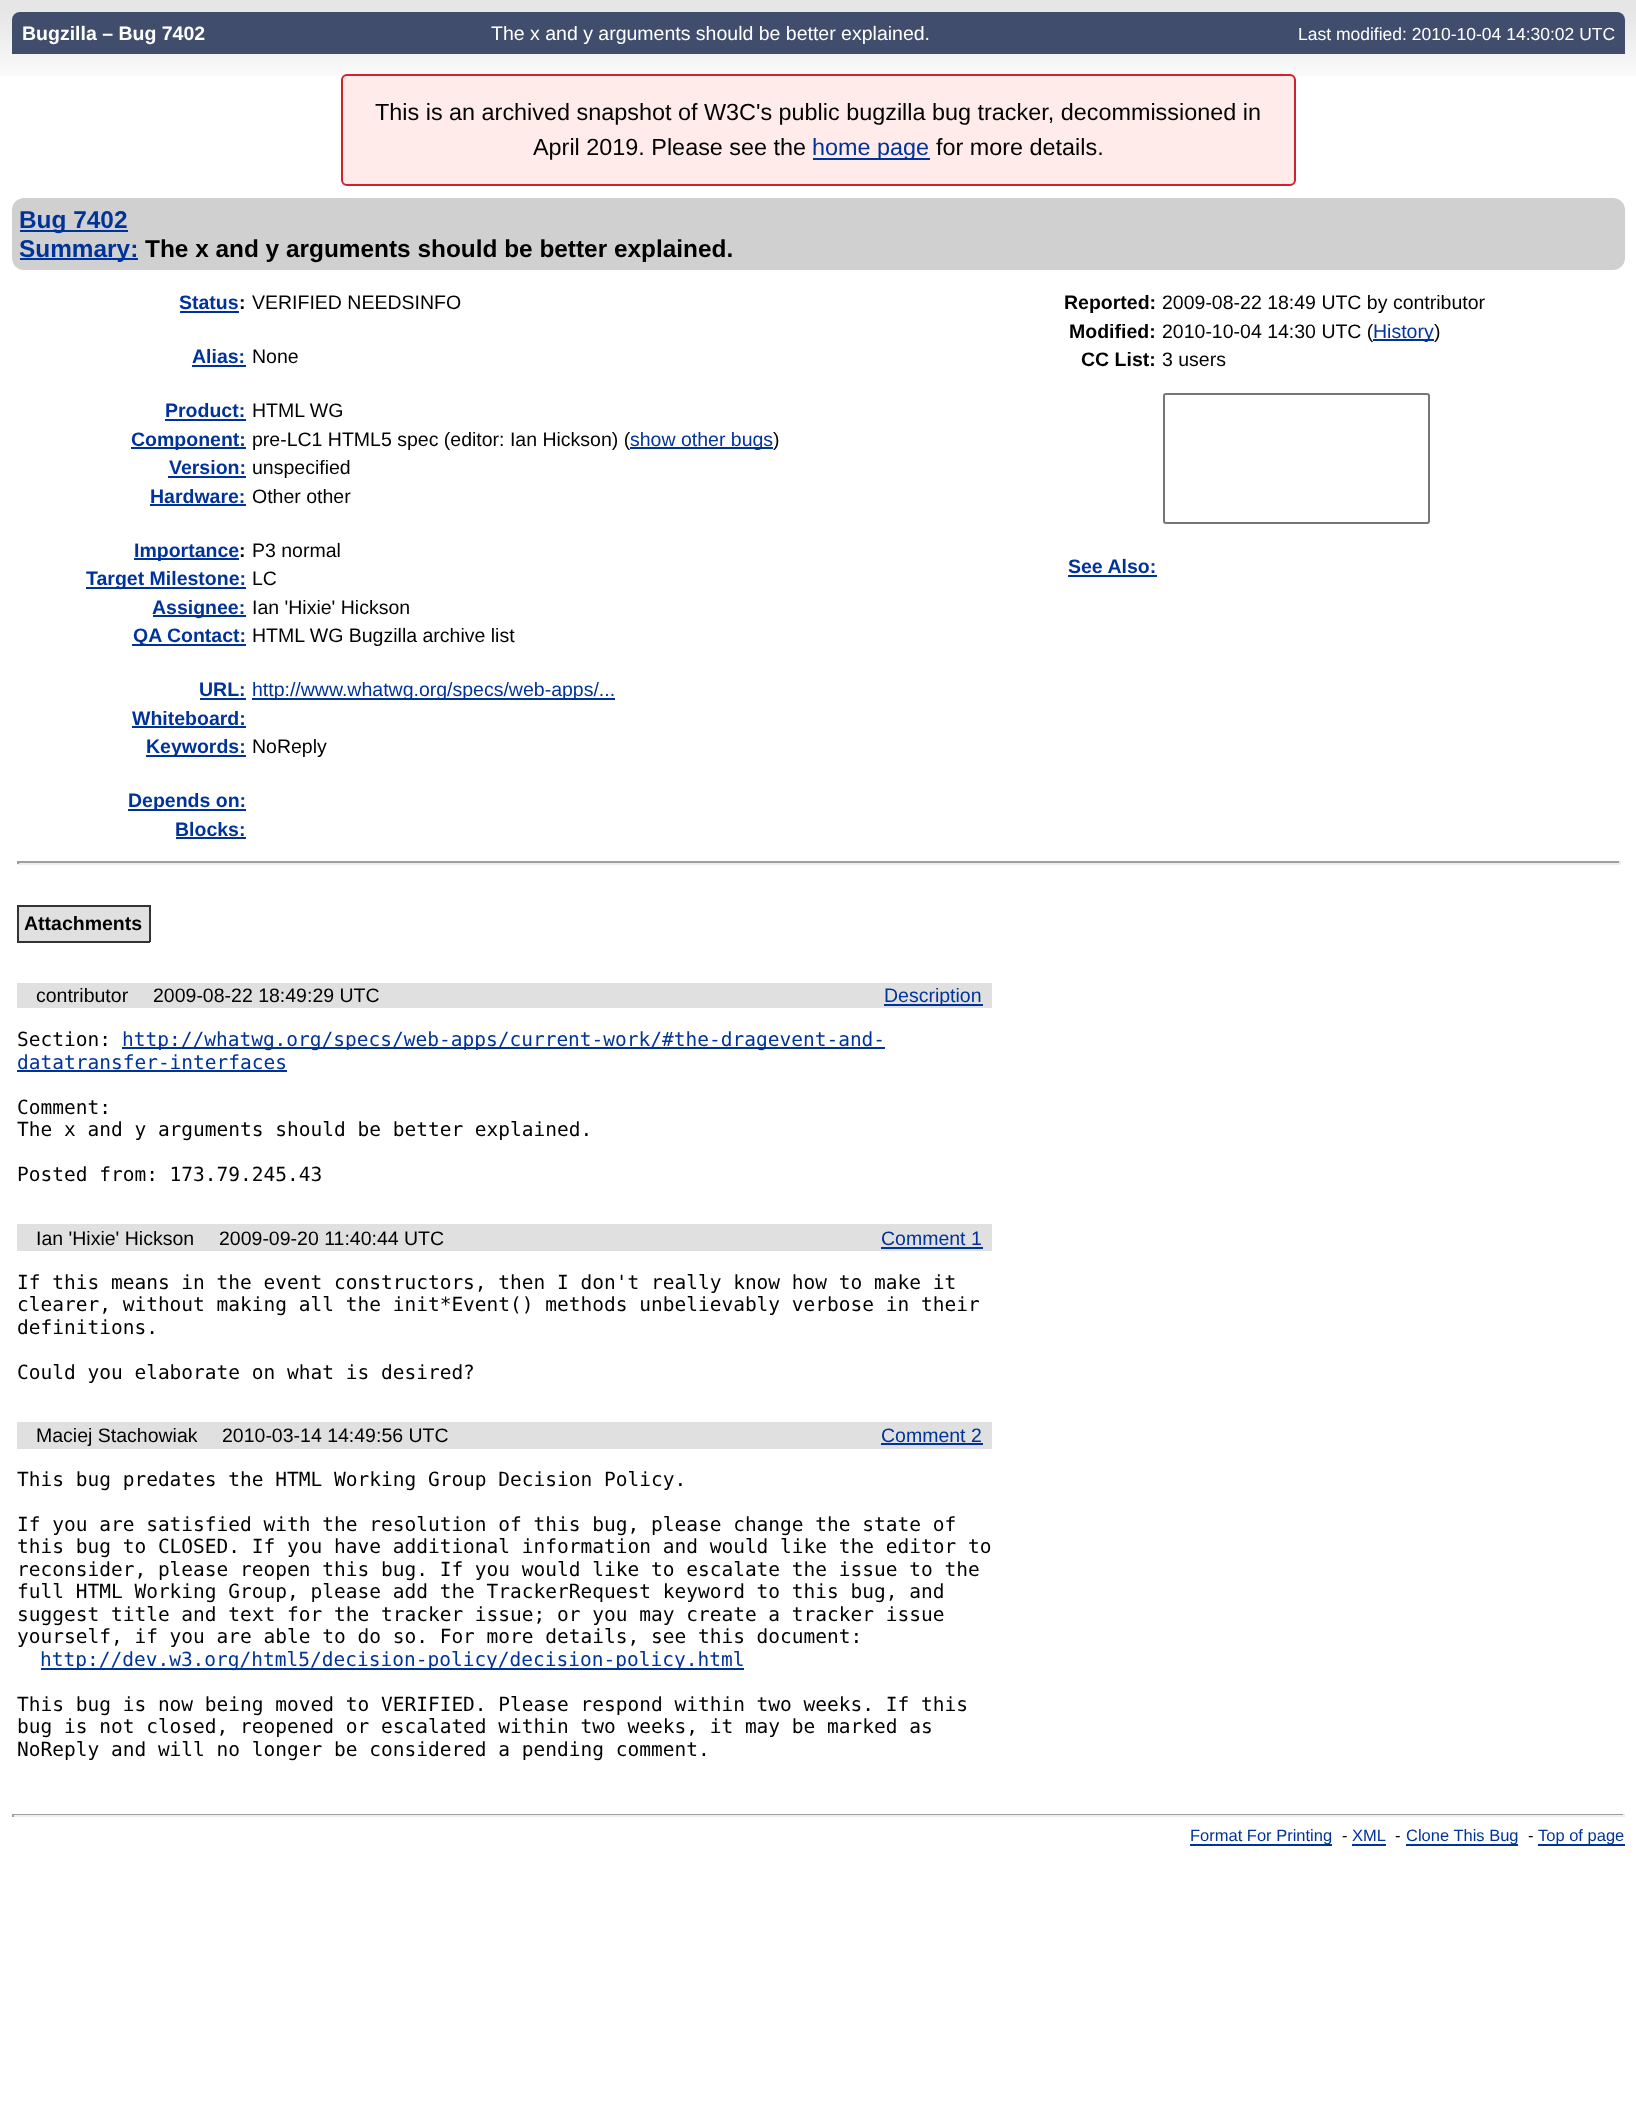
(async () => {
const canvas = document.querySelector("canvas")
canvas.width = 1636
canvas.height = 2112
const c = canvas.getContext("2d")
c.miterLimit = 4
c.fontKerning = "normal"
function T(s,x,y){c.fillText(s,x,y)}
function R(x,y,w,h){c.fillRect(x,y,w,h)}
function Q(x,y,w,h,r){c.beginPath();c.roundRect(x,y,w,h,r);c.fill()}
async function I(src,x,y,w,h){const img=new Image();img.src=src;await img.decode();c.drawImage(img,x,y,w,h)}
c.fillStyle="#fff"
R(0,0,1636,2112)
await I("1.png",0,0,1636,76)
c.fillStyle="#404d6c"
c.beginPath()
c.roundRect(12,12,1613,42,[8,8,0,0])
c.fill()
c.font="bold 19.5px Liberation Sans"
c.fillStyle="#fff"
T("Bugzilla – Bug 7402",22,40)
c.font="19.5px Liberation Sans"
T("The x and y arguments should be better explained.",491,40)
c.font="17.5px Liberation Sans"
T("Last modified: 2010-10-04 14:30:02 UTC",1298,40)
c.fillStyle="#ffebe9"
c.beginPath()
c.roundRect(342,75,953,110,5)
c.fill()
c.strokeStyle="#cf222e"
c.lineWidth=2
c.stroke()
c.font="23.4px Liberation Sans"
c.fillStyle="#000"
T("This is an archived snapshot of W3C's public bugzilla bug tracker, decommissioned in",375,120)
T("April 2019. Please see the",533,155)
c.fillStyle="#039"
R(813,158,117,2)
T("home page",812,155)
c.fillStyle="#000"
T("for more details.",936,155)
c.fillStyle="#d0d0d0"
Q(12,198,1613,72,12)
c.fillStyle="#039"
R(20,230,108,2)
c.font="bold 24.4px Liberation Sans"
T("Bug 7402",19,228)
R(20,258,118,2)
T("Summary:",19,257)
c.fillStyle="#000"
T("The x and y arguments should be better explained.",145,257)
c.font="bold 19.5px Liberation Sans"
c.fillStyle="#039"
T("Status",179,309)
R(180,311,59,2)
c.fillStyle="#000"
T(":",239,309)
c.font="19.5px Liberation Sans"
T("VERIFIED NEEDSINFO",252,309)
c.font="bold 19.5px Liberation Sans"
c.fillStyle="#039"
T("Alias:",192,363)
R(192,365,54,2)
c.font="19.5px Liberation Sans"
c.fillStyle="#000"
T("None",252,363)
c.font="bold 19.5px Liberation Sans"
c.fillStyle="#039"
T("Product:",165,417)
R(165,419,81,2)
c.font="19.5px Liberation Sans"
c.fillStyle="#000"
T("HTML WG",252,417)
c.fillStyle="#039"
R(131,447,115,2)
c.font="bold 19.5px Liberation Sans"
T("Component:",131,446)
c.font="19.5px Liberation Sans"
c.fillStyle="#000"
T("pre-LC1 HTML5 spec (editor: Ian Hickson) (",252,446)
c.fillStyle="#039"
R(630,447,143,2)
T("show other bugs",630,446)
c.fillStyle="#000"
T(")",773,446)
c.font="bold 19.5px Liberation Sans"
c.fillStyle="#039"
T("Version:",169,474)
R(168,476,78,2)
c.font="19.5px Liberation Sans"
c.fillStyle="#000"
T("unspecified",252,474)
c.font="bold 19.5px Liberation Sans"
c.fillStyle="#039"
T("Hardware:",150,503)
R(150,504,96,2)
c.font="19.5px Liberation Sans"
c.fillStyle="#000"
T("Other other",252,503)
c.fillStyle="#039"
R(134,558,105,2)
c.font="bold 19.5px Liberation Sans"
T("Importance",134,557)
c.fillStyle="#000"
T(":",239,557)
c.font="19.5px Liberation Sans"
T("P3 normal",252,557)
c.fillStyle="#039"
R(86,587,160,2)
c.font="bold 19.5px Liberation Sans"
T("Target Milestone:",86,585)
c.font="19.5px Liberation Sans"
c.fillStyle="#000"
T("LC",252,585)
c.fillStyle="#039"
R(153,615,93,2)
c.font="bold 19.5px Liberation Sans"
T("Assignee:",152,614)
c.font="19.5px Liberation Sans"
c.fillStyle="#000"
T("Ian 'Hixie' Hickson",252,614)
c.fillStyle="#039"
R(132,644,114,2)
c.font="bold 19.5px Liberation Sans"
T("QA Contact:",133,642)
c.font="19.5px Liberation Sans"
c.fillStyle="#000"
T("HTML WG Bugzilla archive list",252,642)
c.font="bold 19.5px Liberation Sans"
c.fillStyle="#039"
T("URL:",199,696)
R(200,698,46,2)
R(252,698,363,2)
c.font="19.5px Liberation Sans"
T("http://www.whatwg.org/specs/web-apps/...",252,696)
c.font="bold 19.5px Liberation Sans"
T("Whiteboard:",132,725)
R(132,726,114,2)
R(146,755,100,2)
T("Keywords:",146,753)
c.font="19.5px Liberation Sans"
c.fillStyle="#000"
T("NoReply",252,753)
c.fillStyle="#039"
R(128,809,118,2)
c.font="bold 19.5px Liberation Sans"
T("Depends on:",128,807)
T("Blocks:",175,836)
R(176,837,70,2)
c.fillStyle="#000"
T("Reported:",1064,309)
c.font="19.5px Liberation Sans"
T("2009-08-22 18:49 UTC by contributor",1162,309)
c.font="bold 19.5px Liberation Sans"
T("Modified:",1069,338)
c.font="19.5px Liberation Sans"
T("2010-10-04 14:30 UTC (",1162,338)
c.fillStyle="#039"
R(1373,339,61,2)
T("History",1373,338)
c.fillStyle="#000"
T(")",1434,338)
c.font="bold 19.5px Liberation Sans"
T("CC List:",1081,366)
c.font="19.5px Liberation Sans"
T("3 users",1162,366)
c.beginPath()
c.roundRect(1164,394,265,129,2)
c.strokeStyle="#767676"
c.stroke()
c.font="bold 19.5px Liberation Sans"
c.fillStyle="#039"
T("See Also:",1068,573)
R(1068,575,89,2)
c.fillStyle="#9f9f9f"
R(17,861,1603,2)
c.fillStyle="#eee"
R(1619,861,2,3)
R(17,863,1603,2)
c.fillStyle="#9f9f9f"
R(17,861,2,3)
c.fillStyle="#333"
R(17,905,133,2)
R(149,905,2,37)
R(17,941,133,2)
R(17,905,2,37)
c.fillStyle="#e0e0e0"
R(19,907,130,34)
c.fillStyle="#000"
T("Attachments",24,930)
c.fillStyle="#e0e0e0"
R(17,983,975,25)
c.font="19.5px Liberation Sans"
c.fillStyle="#000"
T("contributor",36,1002)
T("2009-08-22 18:49:29 UTC",153,1002)
c.fillStyle="#039"
R(884,1004,99,2)
T("Description",884,1002)
c.font="19.5px DejaVu Sans Mono"
c.fillStyle="#000"
T("Section:",17,1046)
c.fillStyle="#039"
R(122,1047,763,2)
T("http://whatwg.org/specs/web-apps/current-work/#the-dragevent-and-",122,1046)
T("datatransfer-interfaces",17,1069)
R(17,1070,270,2)
c.fillStyle="#000"
T("Comment:",17,1114)
T("The x and y arguments should be better explained.",17,1136)
T("Posted from: 173.79.245.43",17,1181)
c.fillStyle="#e0e0e0"
R(17,1224,975,27)
c.font="19.5px Liberation Sans"
c.fillStyle="#000"
T("Ian 'Hixie' Hickson",36,1245)
T("2009-09-20 11:40:44 UTC",219,1245)
c.fillStyle="#039"
T("Comment 1",881,1245)
R(881,1247,102,2)
c.font="19.5px DejaVu Sans Mono"
c.fillStyle="#000"
T("If this means in the event constructors, then I don't really know how to make it",17,1289)
T("clearer, without making all the init*Event() methods unbelievably verbose in their",17,1311)
T("definitions.",17,1334)
T("Could you elaborate on what is desired?",17,1379)
c.fillStyle="#e0e0e0"
R(17,1422,975,27)
c.font="19.5px Liberation Sans"
c.fillStyle="#000"
T("Maciej Stachowiak",36,1442)
T("2010-03-14 14:49:56 UTC",222,1442)
c.fillStyle="#039"
T("Comment 2",881,1442)
R(881,1443,102,2)
c.font="19.5px DejaVu Sans Mono"
c.fillStyle="#000"
T("This bug predates the HTML Working Group Decision Policy.",17,1486)
T("If you are satisfied with the resolution of this bug, please change the state of",17,1531)
T("this bug to CLOSED. If you have additional information and would like the editor to",17,1553)
T("reconsider, please reopen this bug. If you would like to escalate the issue to the",17,1576)
T("full HTML Working Group, please add the TrackerRequest keyword to this bug, and",17,1598)
T("suggest title and text for the tracker issue; or you may create a tracker issue",17,1621)
T("yourself, if you are able to do so. For more details, see this document:",17,1643)
c.fillStyle="#039"
R(41,1668,703,2)
T("http://dev.w3.org/html5/decision-policy/decision-policy.html",40,1666)
c.fillStyle="#000"
T("This bug is now being moved to VERIFIED. Please respond within two weeks. If this",17,1711)
T("bug is not closed, reopened or escalated within two weeks, it may be marked as",17,1733)
T("NoReply and will no longer be considered a pending comment.",17,1756)
c.fillStyle="#9f9f9f"
R(12,1814,1613,1)
c.fillStyle="#eee"
R(1623,1814,2,3)
R(12,1815,1613,2)
c.fillStyle="#9f9f9f"
R(12,1814,2,3)
c.fillStyle="#039"
R(1190,1844,142,2)
c.font="16.5px Liberation Sans"
T("Format For Printing",1190,1841)
c.fillStyle="#000"
T("-",1342,1841)
c.fillStyle="#039"
T("XML",1352,1841)
R(1352,1844,34,2)
c.fillStyle="#000"
T("-",1395,1841)
c.fillStyle="#039"
R(1406,1844,112,2)
T("Clone This Bug",1406,1841)
c.fillStyle="#000"
T("-",1528,1841)
c.fillStyle="#039"
R(1538,1844,87,2)
T("Top of page",1538,1841)
})()
